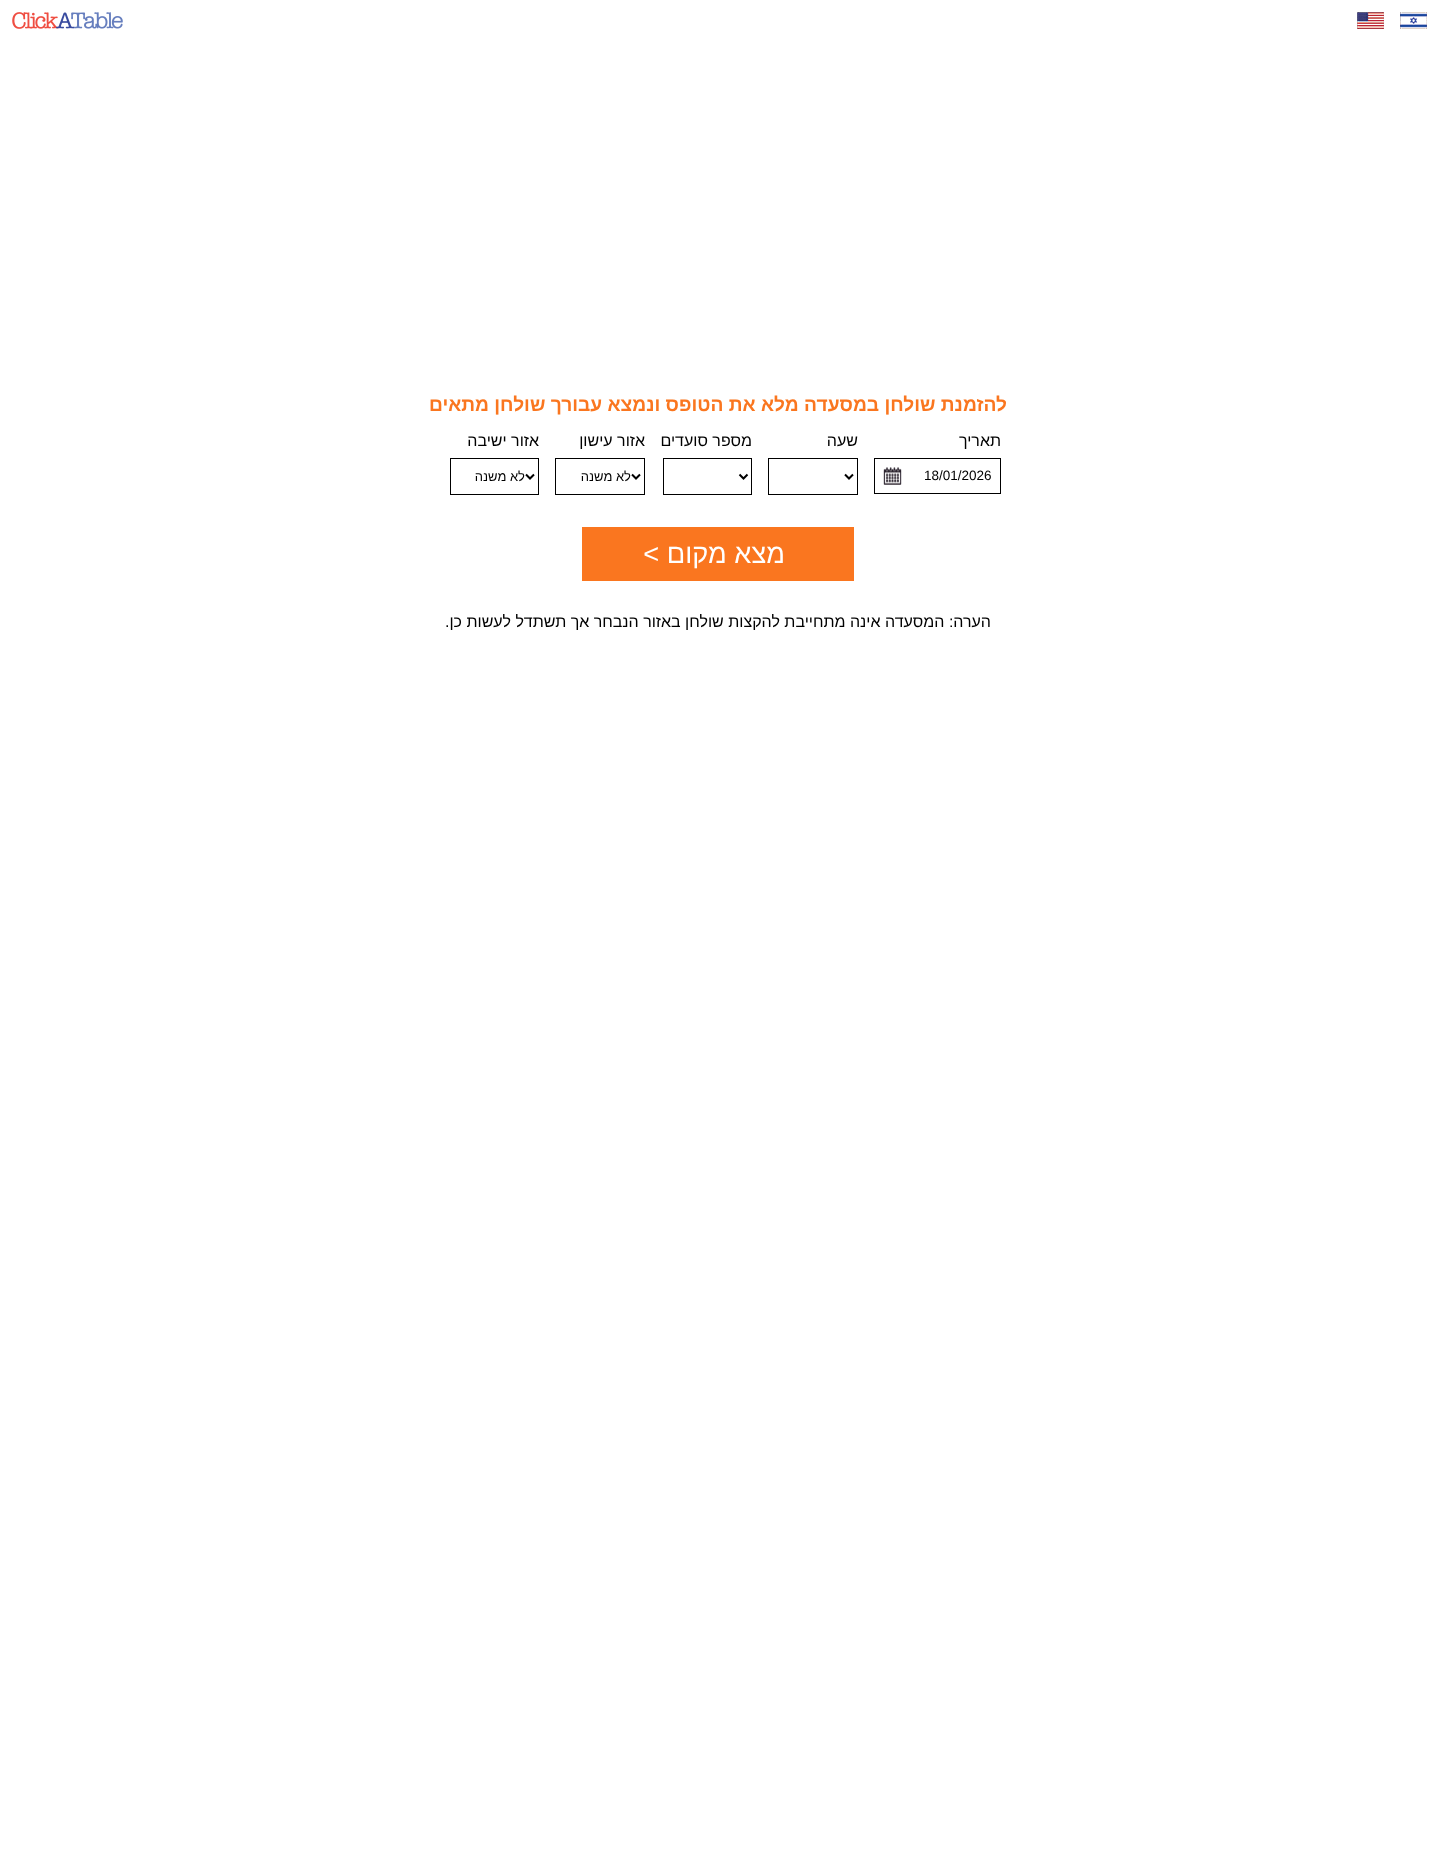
(async () => {
const canvas = document.querySelector("canvas")
canvas.width = 1435
canvas.height = 1864
const c = canvas.getContext("2d")
c.miterLimit = 4
c.fontKerning = "normal"
function T(s,x,y){c.fillText(s,x,y)}
function R(x,y,w,h){c.fillRect(x,y,w,h)}
async function I(src,x,y,w,h){const img=new Image();img.src=src;await img.decode();c.drawImage(img,x,y,w,h)}
let path
c.fillStyle="#fff"
R(0,0,1435,1864)
await I("1.png",1400,12,27,17)
await I("2.png",1357,12,27,17)
await I("3.png",12,12,111,17)
c.direction="rtl"
c.font="bold 19.2px Liberation Sans"
c.fillStyle="#fa761f"
T("להזמנת שולחן במסעדה מלא את הטופס ונמצא עבורך שולחן מתאים",1007,411)
c.font="16px Liberation Sans"
c.fillStyle="#000"
T("תאריך",1001,446)
await I("4.png",883,467,19,18)
c.strokeStyle="#000"
c.strokeRect(874.5,458.5,126,35)
c.direction="ltr"
c.font="13.5px Liberation Sans"
T("18/01/2026",924,480)
c.direction="rtl"
c.font="16px Liberation Sans"
T("שעה",858,446)
c.strokeRect(768.5,458.5,89,36)
path = new Path2D("M845 474.5l4 4l4-4")
c.lineWidth=2
c.stroke(path)
T("מספר סועדים",752,446)
c.lineWidth=1
c.strokeRect(663.5,458.5,88,36)
path = new Path2D("M739.5 474.5l4 4l4-4")
c.lineWidth=2
c.stroke(path)
T("אזור עישון",645,446)
c.lineWidth=1
c.strokeRect(555.5,458.5,89,36)
path = new Path2D("M632 474.5l4 4l4-4")
c.lineWidth=2
c.stroke(path)
c.font="13px Liberation Sans"
T("לא משנה",631,481)
c.font="16px Liberation Sans"
T("אזור ישיבה",539,446)
c.lineWidth=1
c.strokeRect(450.5,458.5,88,36)
path = new Path2D("M526 474.5l4 4l4-4")
c.lineWidth=2
c.stroke(path)
c.font="13px Liberation Sans"
T("לא משנה",525,481)
c.fillStyle="#fa761f"
R(582,527,272,54)
c.font="27.25px Liberation Sans"
c.fillStyle="#fff"
T("מצא מקום >",785,563)
c.font="16px Liberation Sans"
c.fillStyle="#000"
T("הערה: המסעדה אינה מתחייבת להקצות שולחן באזור הנבחר אך תשתדל לעשות כן.",991,627)
})()
